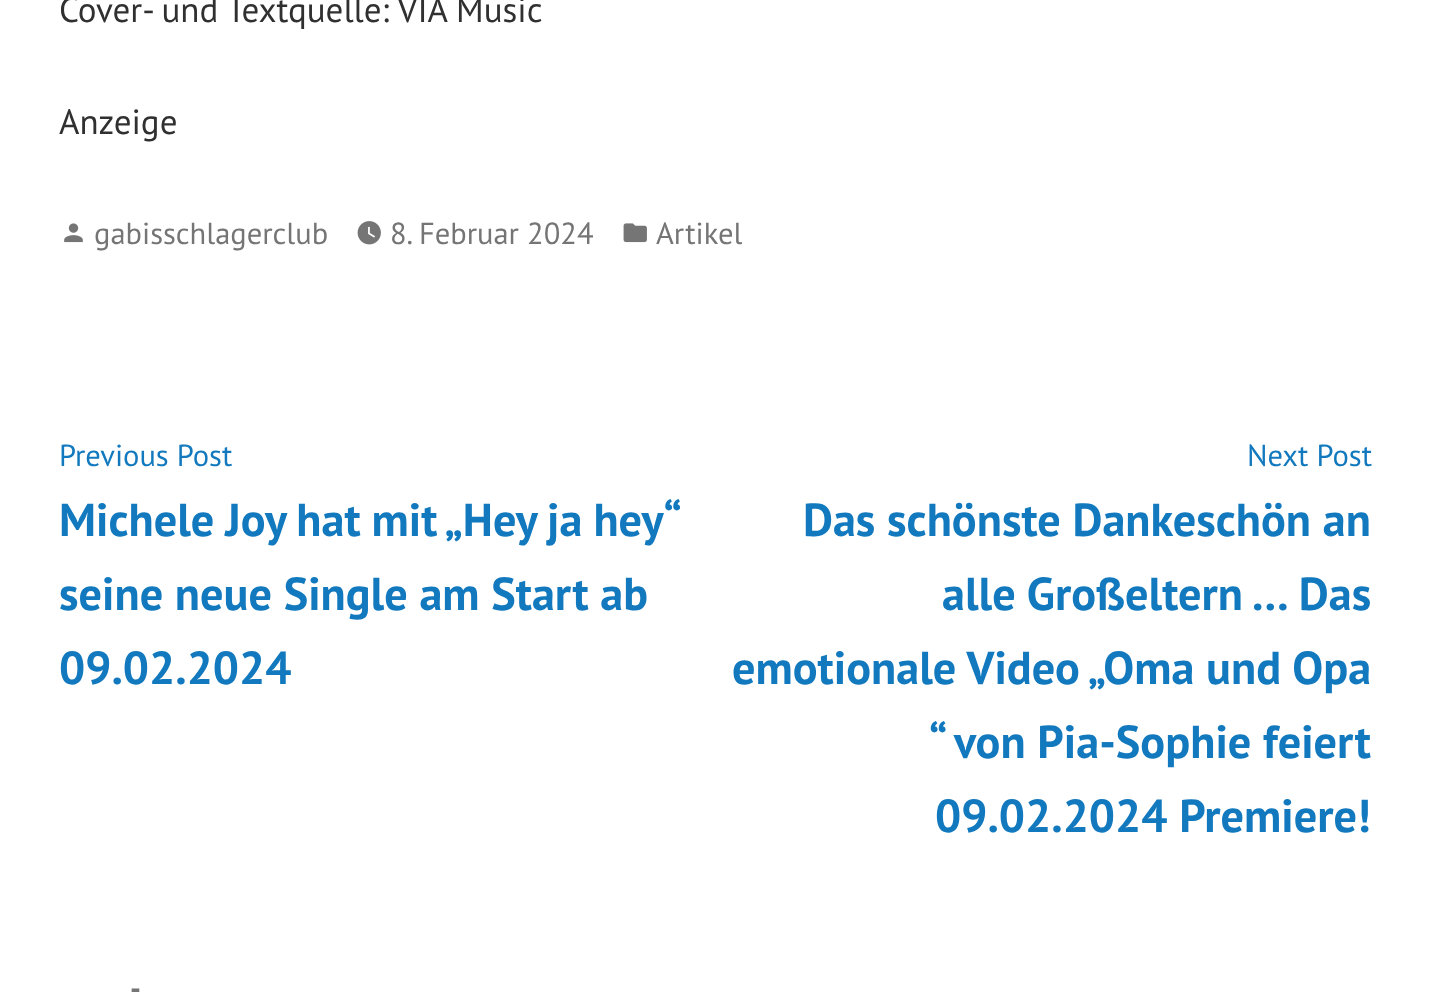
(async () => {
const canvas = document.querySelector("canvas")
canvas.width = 1429
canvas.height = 993
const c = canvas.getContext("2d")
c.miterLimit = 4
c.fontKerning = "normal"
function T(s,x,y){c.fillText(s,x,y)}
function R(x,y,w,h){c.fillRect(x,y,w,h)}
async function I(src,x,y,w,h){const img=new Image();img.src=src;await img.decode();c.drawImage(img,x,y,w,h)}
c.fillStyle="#fff"
R(0,0,1429,993)
c.font="35px PT Sans"
c.fillStyle="#303030"
T("Cover- und Textquelle: VIA Music",59,22)
T("Anzeige",59,134)
await I("1.png",64,223,19,20)
c.font="30.5px PT Sans"
c.fillStyle="#757575"
T("gabisschlagerclub",94,244)
await I("2.png",357,221,24,24)
T("8. Februar 2024",390,244)
await I("3.png",623,223,24,20)
T("Artikel",656,244)
c.fillStyle="#1279be"
T("Previous Post",59,466)
c.wordSpacing="-0.75px"
c.font="bold 46.25px PT Sans"
T("Michele Joy hat mit „Hey ja hey“",59,536)
c.wordSpacing="0px"
T("seine neue Single am Start ab",59,610)
T("09.02.2024",59,684)
c.font="30.5px PT Sans"
T("Next Post",1247,466)
c.font="bold 46.25px PT Sans"
T("Das schönste Dankeschön an",803,536)
T("alle Großeltern … Das",942,610)
T("emotionale Video „Oma und Opa",732,684)
T("“ von Pia-Sophie feiert",929,758)
T("09.02.2024 Premiere!",935,832)
c.font="bold 30.5px PT Sans"
c.fillStyle="#757575"
T("-",130,999)
})()
